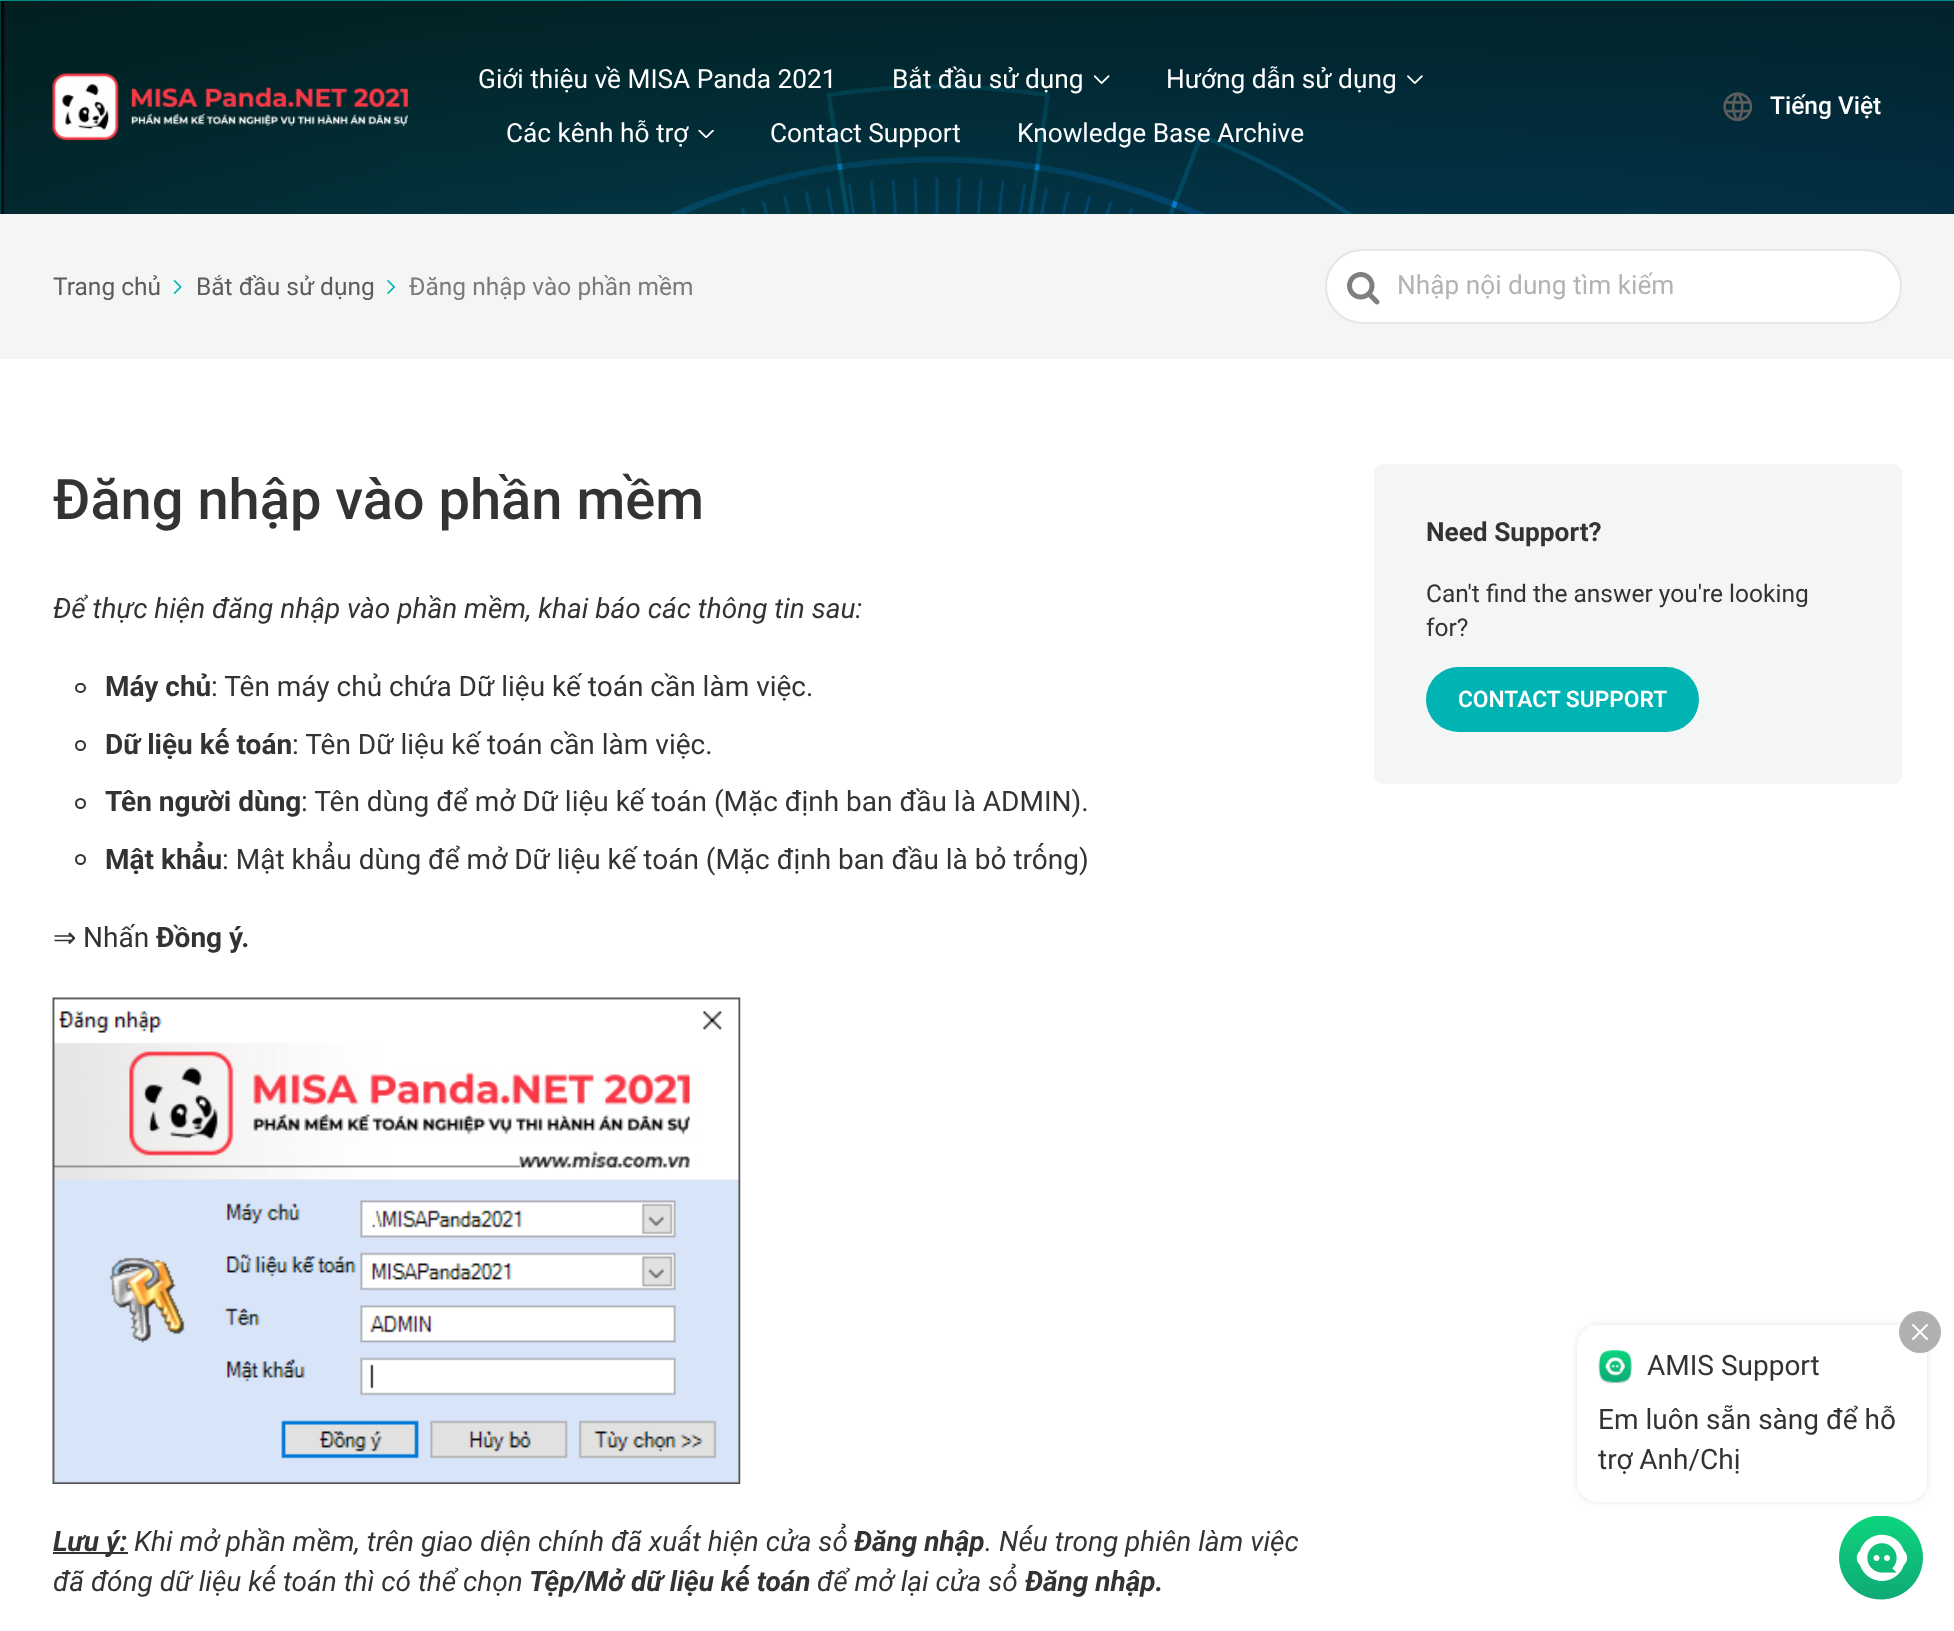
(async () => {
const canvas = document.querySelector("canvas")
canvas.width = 1954
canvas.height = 1631
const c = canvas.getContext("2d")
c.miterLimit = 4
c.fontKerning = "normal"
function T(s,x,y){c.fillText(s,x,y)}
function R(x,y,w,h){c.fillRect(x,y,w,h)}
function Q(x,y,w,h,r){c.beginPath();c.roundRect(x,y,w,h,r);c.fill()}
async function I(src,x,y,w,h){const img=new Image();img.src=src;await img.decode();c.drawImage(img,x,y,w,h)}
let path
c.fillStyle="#fff"
R(0,0,1954,1631)
c.fillStyle="#00b4b3"
R(0,0,1954,214)
await I("1.png",0,0,1954,214)
await I("2.png",52,73,356,67)
c.font="26.25px Roboto"
c.fillStyle="#fff"
T("Giới thiệu về MISA Panda 2021",478,88)
T("Bắt đầu sử dụng",892,88)
await I("3.png",1094,75,16,9)
T("Hướng dẫn sử dụng",1166,88)
await I("4.png",1407,75,16,9)
T("Các kênh hỗ trợ",506,142)
await I("5.png",698,130,16,8)
T("Contact Support",770,142)
T("Knowledge Base Archive",1017,142)
await I("6.png",1723,92,30,30)
c.font="500 24.5px Roboto"
T("Tiếng Việt",1770,114)
c.fillStyle="#f4f5f5"
R(0,214,1954,145)
c.font="24.5px Roboto"
c.fillStyle="#5c5c5c"
T("Trang chủ",53,295)
await I("7.png",173,280,9,14)
T("Bắt đầu sử dụng",196,295)
await I("8.png",387,280,8,14)
c.fillStyle="#7a7b7b"
T("Đăng nhập vào phần mềm",409,295)
c.fillStyle="#fff"
Q(1325,249,577,75,37.5)
c.beginPath()
c.roundRect(1326,250,575,73,36.5)
c.strokeStyle="#cccccc80"
c.lineWidth=2
c.stroke()
await I("9.png",1347,272,33,33)
c.font="26.25px Roboto"
c.fillStyle="#b3b3b3"
T("Nhập nội dung tìm kiếm",1397,294)
c.font="500 56px Roboto"
c.fillStyle="#333"
T("Đăng nhập vào phần mềm",53,519)
c.font="italic 28px Roboto"
T("Để thực hiện đăng nhập vào phần mềm, khai báo các thông tin sau:",53,618)
c.beginPath()
c.roundRect(76,684,9,8,4)
c.strokeStyle="#333"
c.stroke()
c.font="bold 28px Roboto"
T("Máy chủ",105,696)
c.font="28px Roboto"
T(": Tên máy chủ chứa Dữ liệu kế toán cần làm việc.",211,696)
c.beginPath()
c.arc(80.5,745.5,4.5,0,7)
c.stroke()
c.font="bold 28px Roboto"
T("Dữ liệu kế toán",105,754)
c.font="28px Roboto"
T(": Tên Dữ liệu kế toán cần làm việc.",292,754)
c.beginPath()
c.arc(80.5,803.5,4.5,0,7)
c.stroke()
c.font="bold 28px Roboto"
T("Tên người dùng",105,811)
c.font="28px Roboto"
T(": Tên dùng để mở Dữ liệu kế toán (Mặc định ban đầu là ADMIN).",301,811)
c.beginPath()
c.arc(80.5,859.5,4.5,0,7)
c.stroke()
c.font="bold 28px Roboto"
T("Mật khẩu",105,869)
c.font="28px Roboto"
T(": Mật khẩu dùng để mở Dữ liệu kế toán (Mặc định ban đầu là bỏ trống)",222,869)
c.font="28px DejaVu Sans"
T("⇒",53,947)
c.font="28px Roboto"
T("Nhấn",83,947)
c.font="bold 28px Roboto"
T("Đồng ý.",156,947)
await I("10.png",52,997,689,487)
R(53,1552,75,2)
c.font="italic bold 28px Roboto"
T("Lưu ý:",53,1551)
c.font="italic 28px Roboto"
T("Khi mở phần mềm, trên giao diện chính đã xuất hiện cửa sổ",134,1551)
c.font="italic bold 28px Roboto"
T("Đăng nhập",854,1551)
c.font="italic 28px Roboto"
T(". Nếu trong phiên làm việc",985,1551)
T("đã đóng dữ liệu kế toán thì có thể chọn",53,1591)
c.font="italic bold 28px Roboto"
T("Tệp/Mở dữ liệu kế toán",529,1591)
c.font="italic 28px Roboto"
T("để mở lại cửa sổ",817,1591)
c.font="italic bold 28px Roboto"
T("Đăng nhập.",1025,1591)
c.fillStyle="#f4f5f5"
Q(1374,464,528,320,9)
c.font="bold 26.25px Roboto"
c.fillStyle="#333"
T("Need Support?",1426,541)
c.font="24.5px Roboto"
T("Can't find the answer you're looking",1426,602)
T("for?",1426,636)
c.fillStyle="#00b4b3"
Q(1426,667,273,65,32.5)
c.font="600 22.75px Roboto"
c.fillStyle="#fff"
T("CONTACT SUPPORT",1458,707)
c.fillStyle="#0000001a"
c.filter="blur(3.5px)"
c.beginPath()
c.roundRect(1577,1325,350,177,21)
c.fill()
c.filter="none"
c.fillStyle="#fff"
Q(1577,1325,350,177,21)
c.fillStyle="#b0b0b0"
c.beginPath()
c.arc(1920,1332,21,0,7)
c.fill()
path = new Path2D("M1927 1325l-14 14m0-14l14 14")
c.strokeStyle="#fff"
c.lineWidth=2.1
c.lineCap="round"
c.lineJoin="round"
c.stroke(path)
await I("11.png",1598,1350,34,34)
c.font="28px Roboto"
c.fillStyle="#333"
T("AMIS Support",1647,1375)
T("Em luôn sẵn sàng để hỗ",1598,1429)
T("trợ Anh/Chị",1598,1469)
await I("12.png",1839,1516,84,84)
})()
